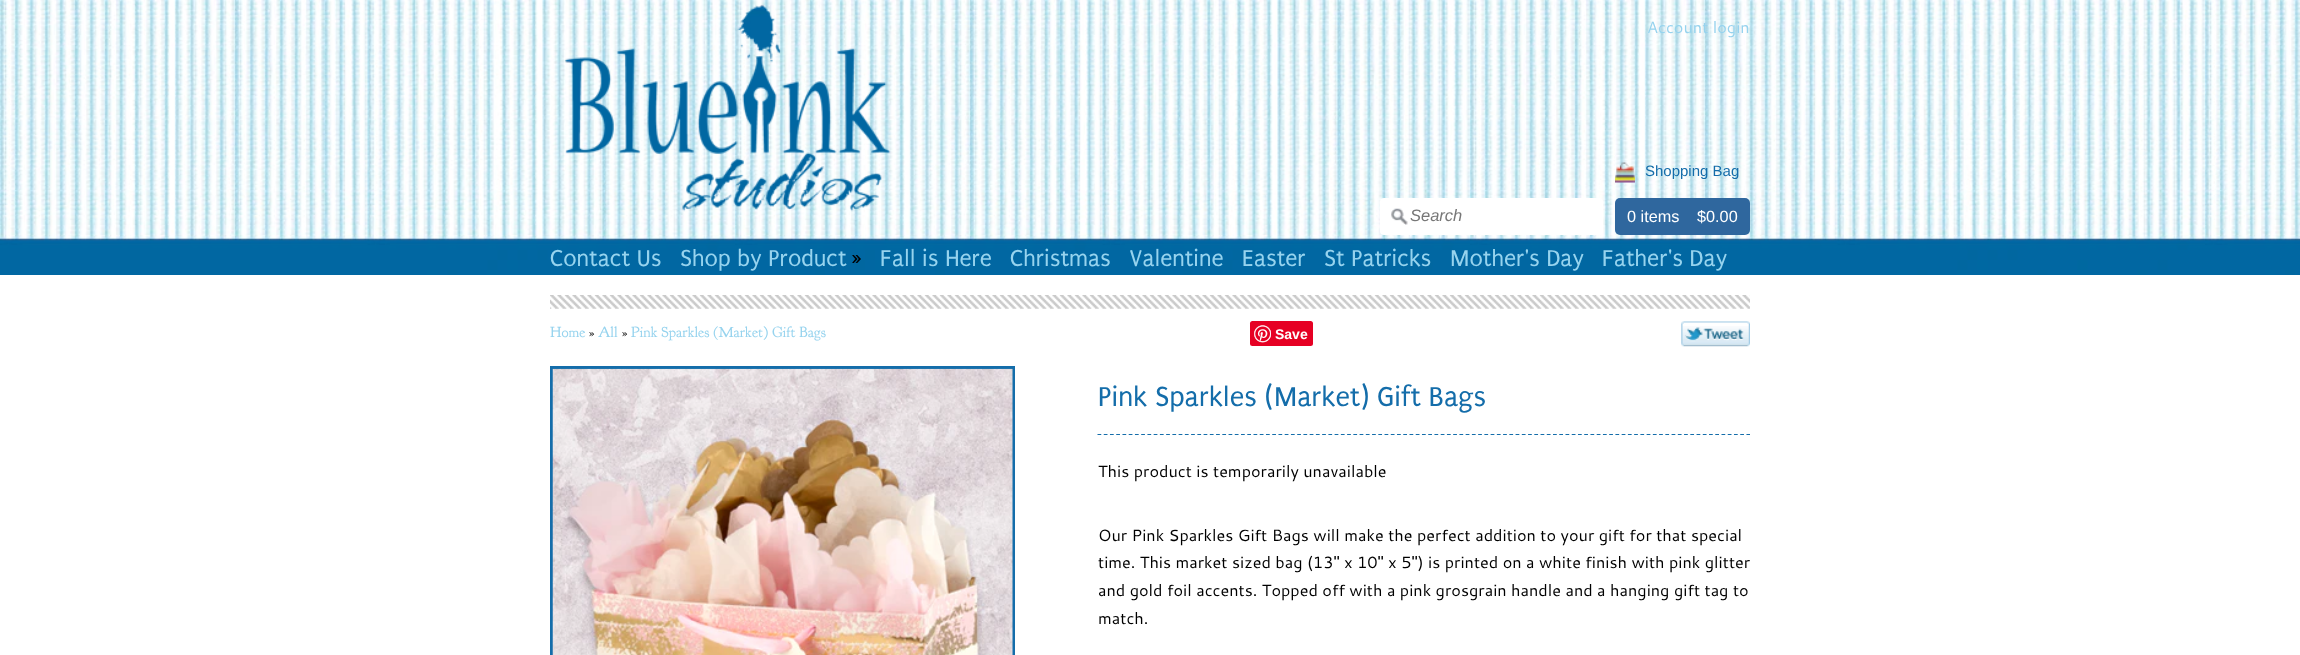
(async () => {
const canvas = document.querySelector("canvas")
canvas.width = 2300
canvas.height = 655
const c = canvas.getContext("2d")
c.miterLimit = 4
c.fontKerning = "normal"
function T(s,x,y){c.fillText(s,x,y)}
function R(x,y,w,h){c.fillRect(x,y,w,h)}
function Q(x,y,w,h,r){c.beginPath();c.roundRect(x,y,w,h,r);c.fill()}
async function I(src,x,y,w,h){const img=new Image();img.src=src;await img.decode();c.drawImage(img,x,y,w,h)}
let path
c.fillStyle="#fff"
R(0,0,2300,655)
await I("1.png",0,0,2300,275)
c.font="16.25px Cantarell"
c.fillStyle="#96d3ee"
T("Account login",1647,33)
await I("2.png",564,4,327,208)
c.fillStyle="#fff"
Q(1380,198,223,37,4)
await I("3.png",1391,208,17,17)
c.font="italic 16.5px Liberation Sans"
c.fillStyle="#777"
T("Search",1410,221)
c.fillStyle="#2f679e"
Q(1615,198,135,37,5)
await I("4.png",1615,162,20,21)
c.font="15px Liberation Sans"
c.fillStyle="#146daa"
T("Shopping Bag",1645,176)
c.font="16.25px Liberation Sans"
c.fillStyle="#fff"
T("0 items",1627,222)
T("$0.00",1697,222)
await I("5.png",550,295,1200,14)
c.font="24.5px Puritan"
c.fillStyle="#96d3ee"
T("Contact Us",550,266)
T("Shop by Product",680,266)
c.fillStyle="#000"
T("»",852,266)
c.fillStyle="#96d3ee"
T("Fall is Here",880,266)
T("Christmas",1010,266)
T("Valentine",1129,266)
T("Easter",1242,266)
T("St Patricks",1324,266)
T("Mother's Day",1450,266)
T("Father's Day",1602,266)
c.font="15px 'Goudy Bookletter 1911'"
T("Home",550,337)
c.fillStyle="#000"
T("»",589,337)
c.fillStyle="#96d3ee"
T("All",598,337)
c.fillStyle="#000"
T("»",622,337)
c.fillStyle="#96d3ee"
T("Pink Sparkles (Market) Gift Bags",631,337)
c.fillStyle="#e60023"
Q(1250,321,63,25,2.5)
await I("6.png",1254,325,17,18)
c.font="bold 14px Liberation Sans"
c.fillStyle="#fff"
T("Save",1275,339)
await I("7.png",1681,321,69,26)
c.strokeStyle="#146daa"
c.lineWidth=3
c.strokeRect(551.5,367.5,462,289)
await I("8.png",552,368,461,287)
path = new Path2D("M1097.5 434.5h652.5")
c.lineWidth=1.2
c.setLineDash([3.75,2.49])
c.stroke(path)
c.font="29.25px Puritan"
c.fillStyle="#146daa"
T("Pink Sparkles (Market) Gift Bags",1098,406)
c.font="16.25px Cantarell"
c.fillStyle="#000"
T("This product is temporarily unavailable",1098,477)
T("Our Pink Sparkles Gift Bags will make the perfect addition to your gift for that special",1098,541)
T("time. This market sized bag (13\" x 10\" x 5\") is printed on a white finish with pink glitter",1098,568)
T("and gold foil accents. Topped off with a pink grosgrain handle and a hanging gift tag to",1098,596)
T("match.",1098,624)
})()
